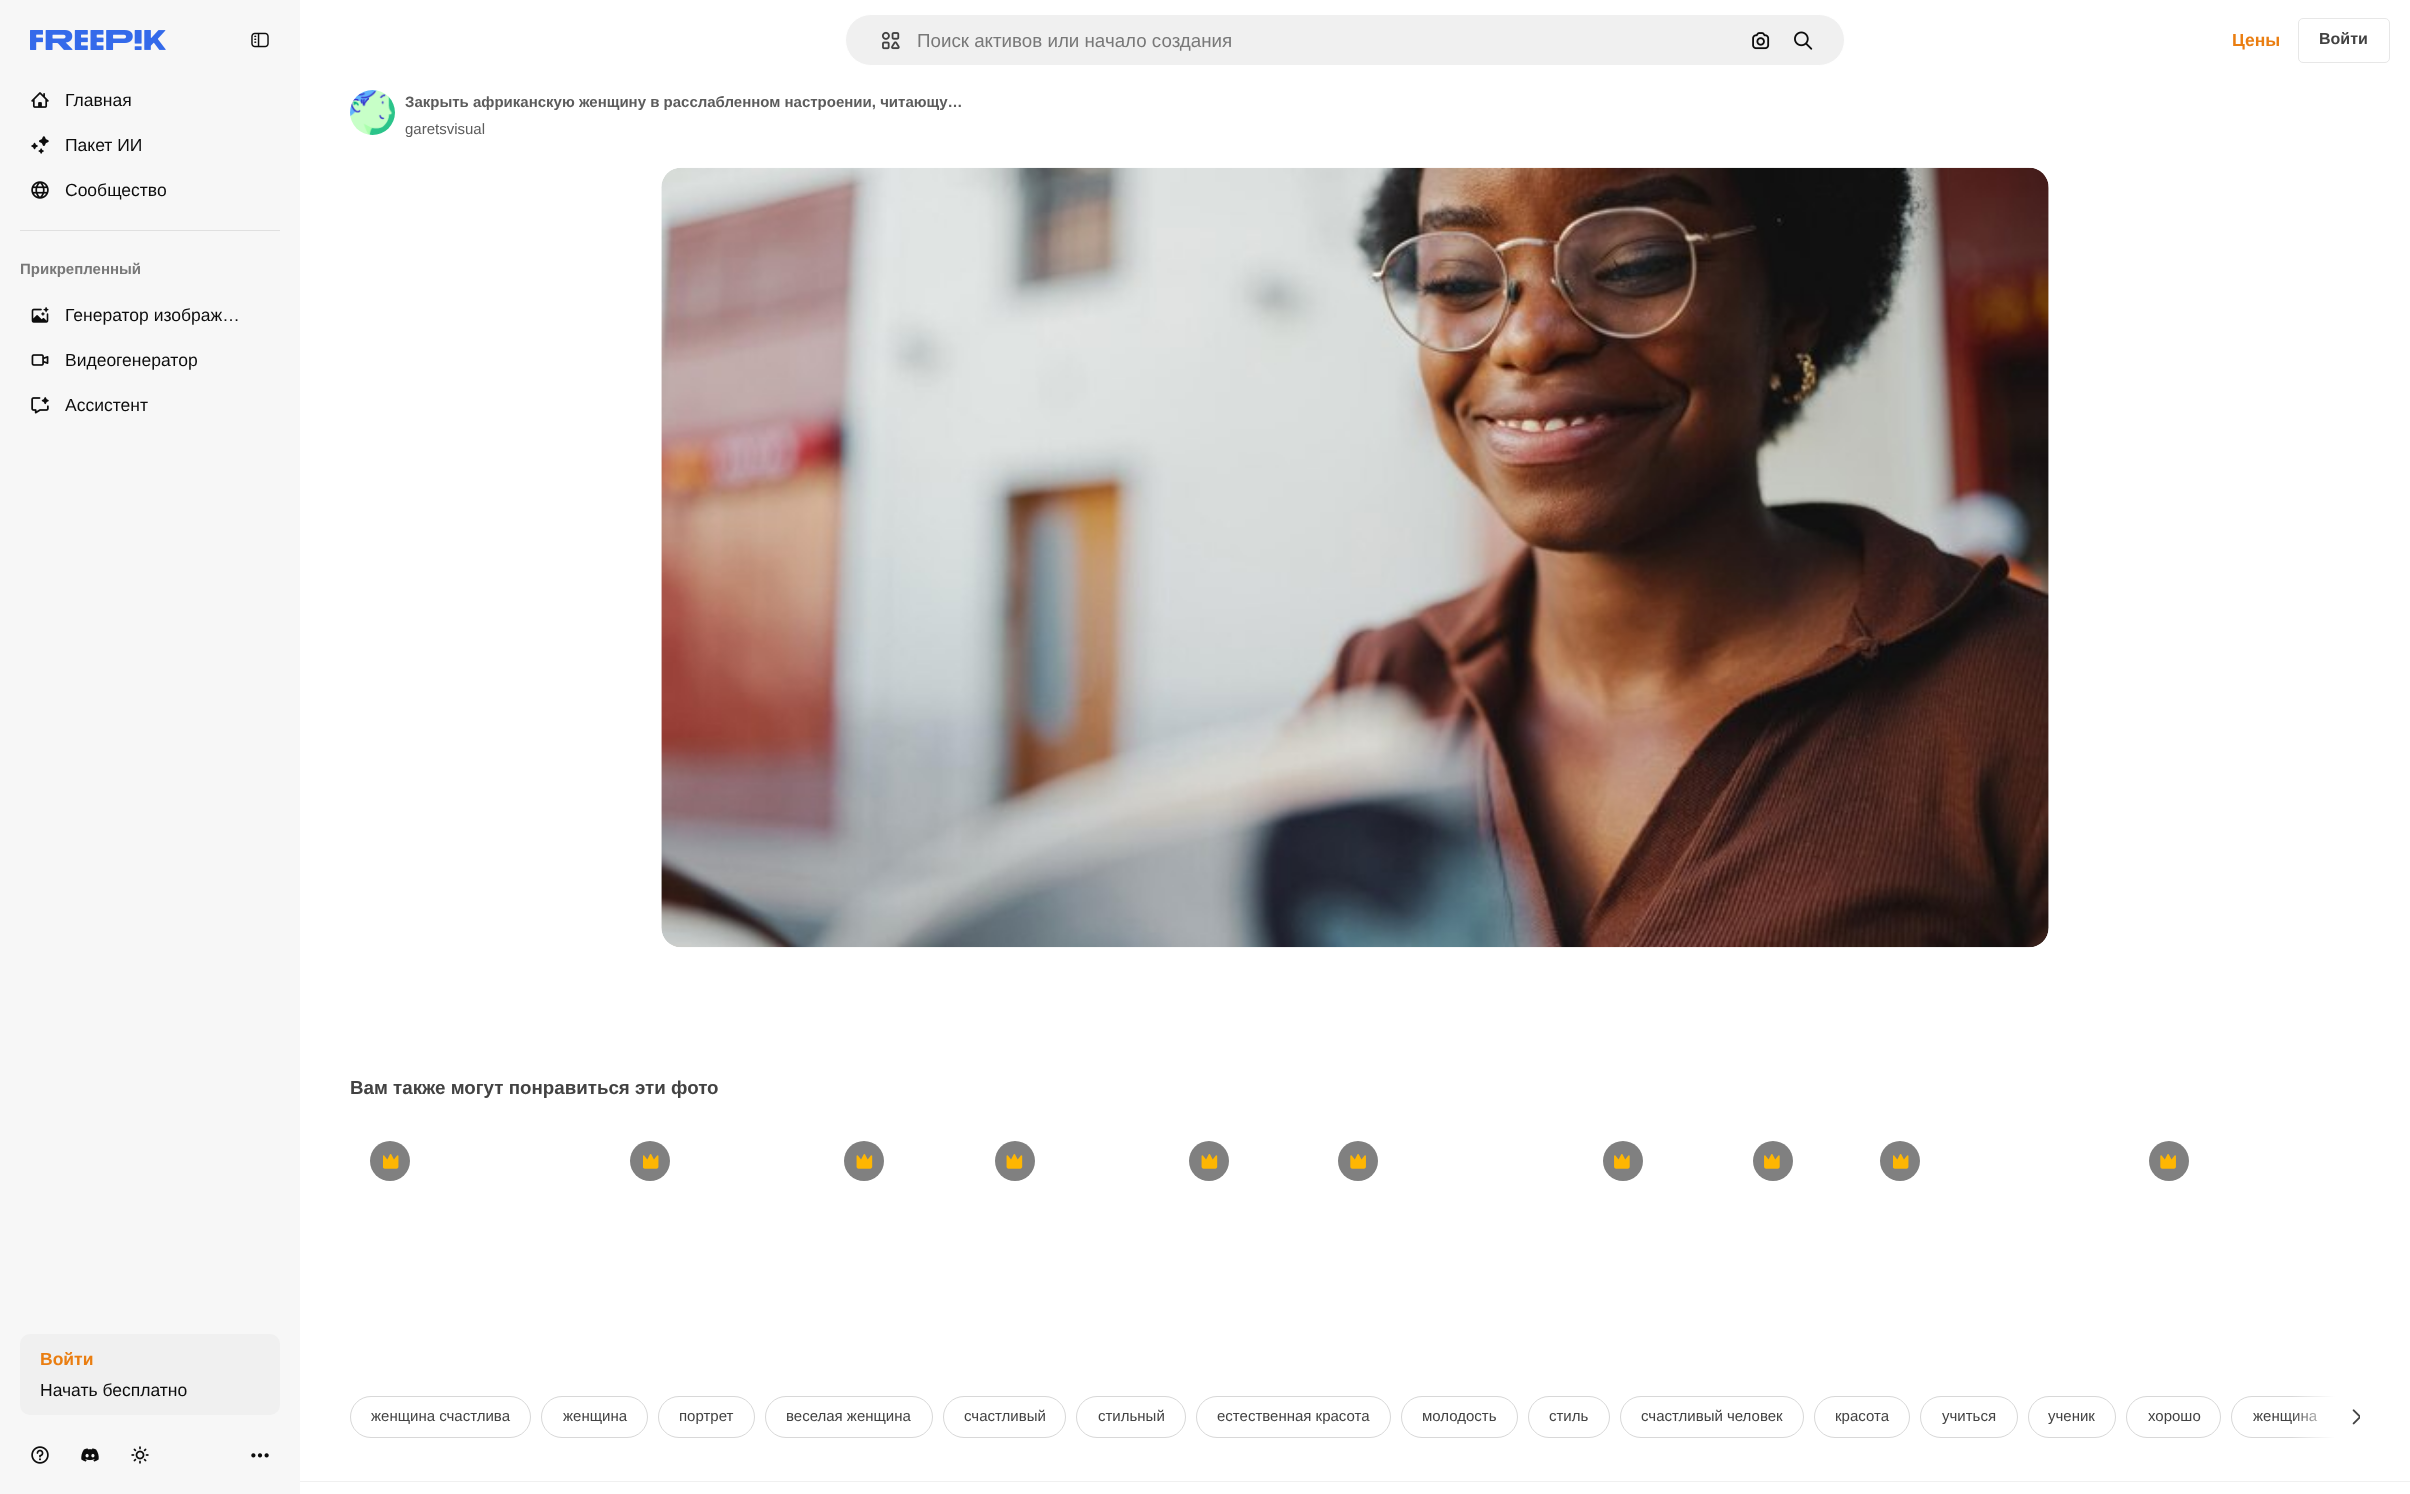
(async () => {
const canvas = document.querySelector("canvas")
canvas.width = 2410
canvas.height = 1494
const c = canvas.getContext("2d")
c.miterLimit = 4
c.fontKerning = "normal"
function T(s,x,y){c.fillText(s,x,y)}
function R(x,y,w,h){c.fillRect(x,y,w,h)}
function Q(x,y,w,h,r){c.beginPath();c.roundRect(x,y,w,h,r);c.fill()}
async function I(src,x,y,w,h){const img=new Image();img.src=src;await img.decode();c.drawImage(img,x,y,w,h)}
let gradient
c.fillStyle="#fff"
R(0,0,2410,1494)
c.fillStyle="#f7f7f7"
R(0,0,300,1494)
await I("1.png",30,30,136,20)
await I("2.png",251,32,18,16)
await I("3.png",31,92,18,16)
c.font="17.5px Liberation Sans"
c.fillStyle="#0d0d0d"
T("Главная",65,106)
await I("4.png",31,136,18,18)
T("Пакет ИИ",65,151)
await I("5.png",31,181,18,18)
T("Сообщество",65,196)
c.fillStyle="#e0e0e0"
R(20,230,260,1)
c.font="bold 15px Liberation Sans"
c.fillStyle="#787878"
T("Прикрепленный",20,274)
await I("6.png",31,307,18,16)
c.font="17.5px Liberation Sans"
c.fillStyle="#0d0d0d"
T("Генератор изображ…",65,321)
await I("7.png",31,354,18,12)
T("Видеогенератор",65,366)
await I("8.png",31,397,18,17)
T("Ассистент",65,411)
c.fillStyle="#f0f0f0"
Q(20,1334,260,81,10)
c.font="bold 17.5px Liberation Sans"
c.fillStyle="#ea7e11"
T("Войти",40,1365)
c.font="17.5px Liberation Sans"
c.fillStyle="#0d0d0d"
T("Начать бесплатно",40,1396)
await I("9.png",31,1446,18,18)
await I("10.png",81,1448,18,14)
await I("11.png",131,1446,18,18)
await I("12.png",251,1453,18,5)
c.fillStyle="#f0f0f0"
c.beginPath()
c.roundRect(845.5,14.5,999,51,25.5)
c.fill()
c.strokeStyle="#fff"
c.stroke()
await I("13.png",881,31,19,19)
c.font="18.75px Liberation Sans"
c.fillStyle="#787878"
T("Поиск активов или начало создания",917,47)
await I("14.png",1752,32,18,18)
await I("15.png",1794,31,19,19)
c.font="bold 17.5px Liberation Sans"
c.fillStyle="#ea7e11"
T("Цены",2232,46)
c.beginPath()
c.roundRect(2298.5,18.5,91,44,4.5)
c.strokeStyle="#e7e7e7"
c.stroke()
c.font="bold 16px Liberation Sans"
c.fillStyle="#424242"
T("Войти",2319,44)
await I("16.png",350,90,45,45)
c.font="bold 15px Liberation Sans"
c.fillStyle="#5c5c5c"
T("Закрыть африканскую женщину в расслабленном настроении, читающу…",405,107)
c.font="15px Liberation Sans"
T("garetsvisual",405,134)
await I("17.png",661,167,1388,781)
c.font="bold 18.75px Liberation Sans"
c.fillStyle="#424242"
T("Вам также могут понравиться эти фото",350,1094)
c.fillStyle="#808080"
c.beginPath()
c.arc(390,1161,20,0,7)
c.fill()
await I("18.png",383,1154,16,15)
c.beginPath()
c.arc(650,1161,20,0,7)
c.fill()
await I("18.png",643,1154,16,15)
c.beginPath()
c.arc(864,1161,20,0,7)
c.fill()
await I("19.png",856,1154,17,15)
c.beginPath()
c.arc(1015,1161,20,0,7)
c.fill()
await I("19.png",1006,1154,17,15)
c.beginPath()
c.arc(1209,1161,20,0,7)
c.fill()
await I("19.png",1201,1154,17,15)
c.beginPath()
c.arc(1358,1161,20,0,7)
c.fill()
await I("20.png",1350,1154,16,15)
c.beginPath()
c.arc(1623,1161,20,0,7)
c.fill()
await I("21.png",1614,1154,16,15)
c.beginPath()
c.arc(1773,1161,20,0,7)
c.fill()
await I("21.png",1764,1154,16,15)
c.beginPath()
c.arc(1900,1161,20,0,7)
c.fill()
await I("18.png",1893,1154,16,15)
c.beginPath()
c.arc(2169,1161,20,0,7)
c.fill()
await I("20.png",2160,1154,16,15)
c.beginPath()
c.roundRect(350.5,1396.5,180,41,20.5)
c.strokeStyle="#d8d8d8"
c.stroke()
c.font="15px Liberation Sans"
c.fillStyle="#424242"
T("женщина счастлива",371,1421)
c.beginPath()
c.roundRect(541.5,1396.5,106,41,20.5)
c.stroke()
T("женщина",563,1421)
c.beginPath()
c.roundRect(658.5,1396.5,96,41,20.5)
c.stroke()
T("портрет",679,1421)
c.beginPath()
c.roundRect(765.5,1396.5,167,41,20.5)
c.stroke()
T("веселая женщина",786,1421)
c.beginPath()
c.roundRect(943.5,1396.5,122,41,20.5)
c.stroke()
T("счастливый",964,1421)
c.beginPath()
c.roundRect(1076.5,1396.5,109,41,20.5)
c.stroke()
T("стильный",1098,1421)
c.beginPath()
c.roundRect(1196.5,1396.5,194,41,20.5)
c.stroke()
T("естественная красота",1217,1421)
c.beginPath()
c.roundRect(1401.5,1396.5,116,41,20.5)
c.stroke()
T("молодость",1422,1421)
c.beginPath()
c.roundRect(1528.5,1396.5,81,41,20.5)
c.stroke()
T("стиль",1549,1421)
c.beginPath()
c.roundRect(1620.5,1396.5,183,41,20.5)
c.stroke()
T("счастливый человек",1641,1421)
c.beginPath()
c.roundRect(1814.5,1396.5,95,41,20.5)
c.stroke()
T("красота",1835,1421)
c.beginPath()
c.roundRect(1920.5,1396.5,97,41,20.5)
c.stroke()
T("учиться",1942,1421)
c.beginPath()
c.roundRect(2028.5,1396.5,87,41,20.5)
c.stroke()
T("ученик",2048,1421)
c.beginPath()
c.roundRect(2126.5,1396.5,94,41,20.5)
c.stroke()
T("хорошо",2148,1421)
c.save()
c.beginPath()
c.rect(350,1396,2010,42)
c.clip()
c.beginPath()
c.roundRect(2231.5,1396.5,174,41,20.5)
c.stroke()
c.restore()
T("женщина",2253,1421)
c.fillStyle="#fff"
R(2335,1396,25,42)
gradient = c.createLinearGradient(2335,1417,2291,1417)
gradient.addColorStop(0,"#fff")
gradient.addColorStop(1,"#ffffff00")
c.fillStyle = gradient
R(2293,1396,42,42)
await I("22.png",2352,1409,8,16)
c.fillStyle="#f0f0f0"
R(300,1481,2110,1)
})()
